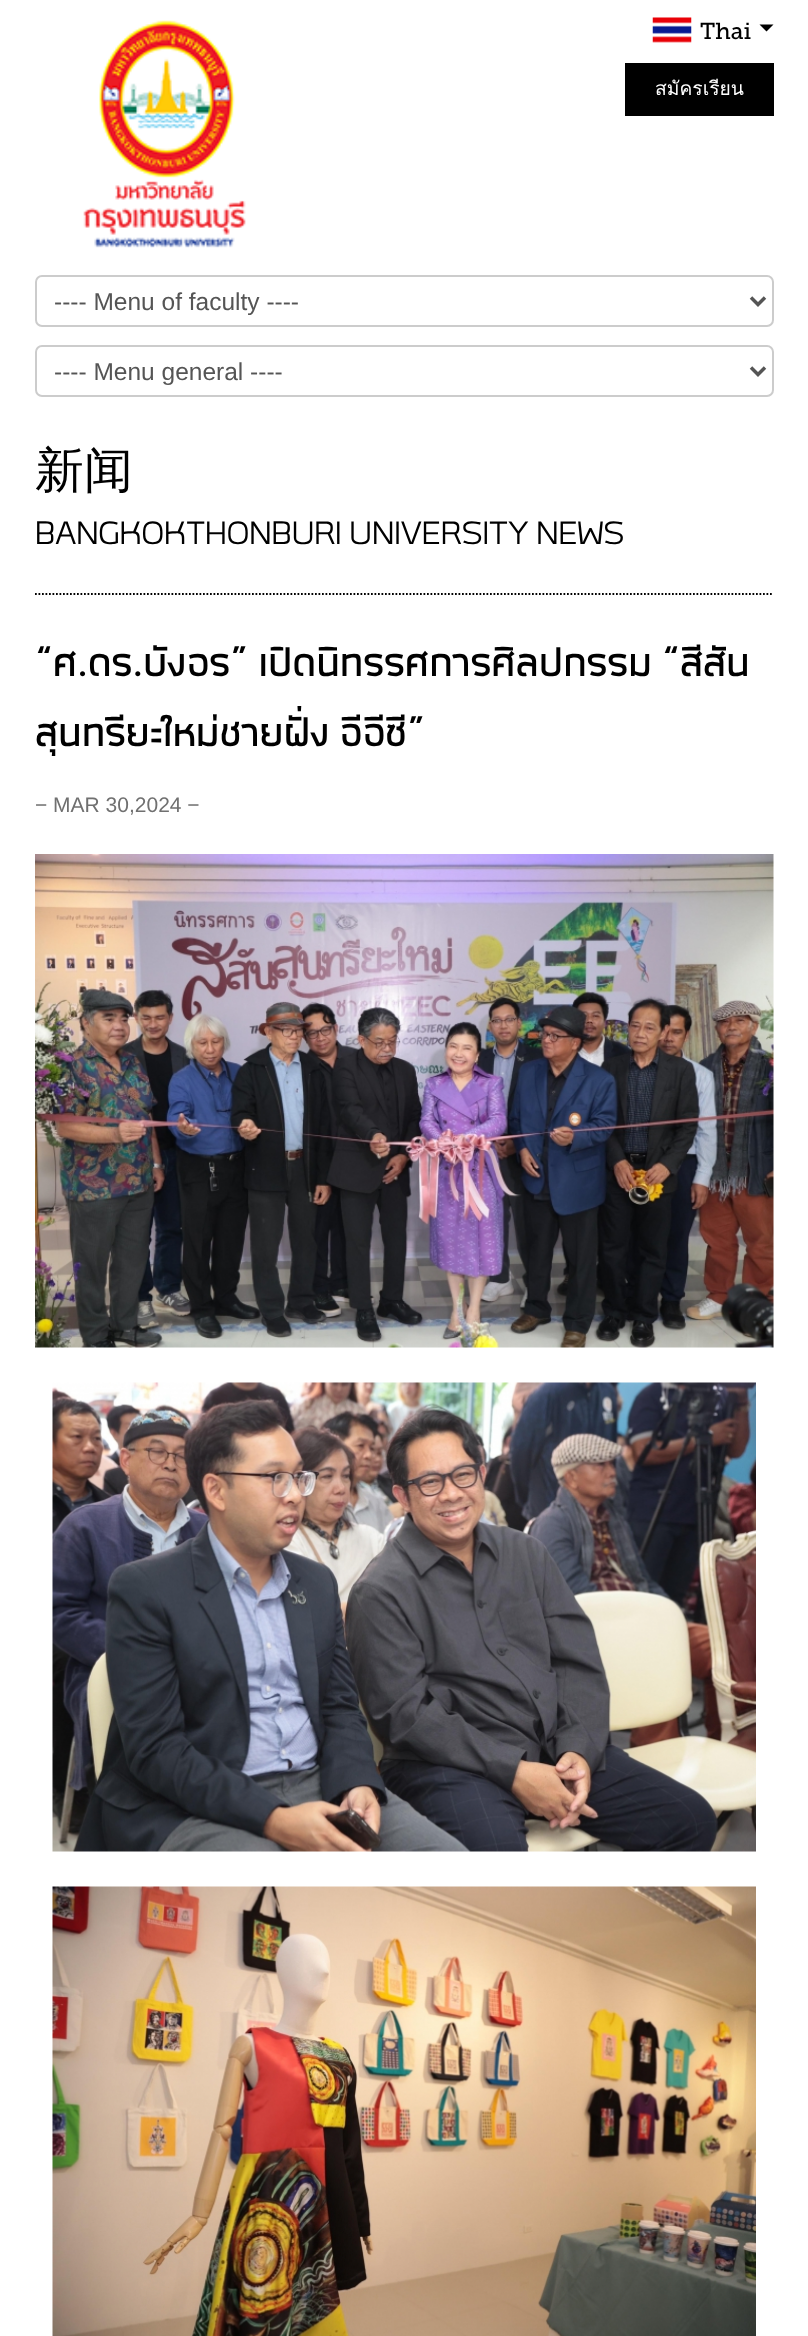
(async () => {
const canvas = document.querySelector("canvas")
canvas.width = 808
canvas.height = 2336
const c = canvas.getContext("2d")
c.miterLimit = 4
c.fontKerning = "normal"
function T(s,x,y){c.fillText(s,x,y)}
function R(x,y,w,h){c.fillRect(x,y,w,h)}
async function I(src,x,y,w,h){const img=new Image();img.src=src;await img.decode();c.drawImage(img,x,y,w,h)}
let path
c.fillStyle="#fff"
R(0,0,808,2336)
await I("1.png",83,20,163,228)
await I("2.png",652,17,40,26)
c.font="23px Museo Slab"
c.fillStyle="#000"
T("Thai",700,39)
path = new Path2D("M759.5 24.5h14l-7 7z")
c.fill(path)
R(625,63,149,53)
c.font="19.25px Loma"
c.fillStyle="#fff"
T("สมัครเรียน",655,95)
c.beginPath()
c.roundRect(36,276,737,50,6)
c.strokeStyle="#ccc"
c.lineWidth=2
c.stroke()
path = new Path2D("M751 297.5l7 7l7-7")
c.strokeStyle="#555"
c.lineWidth=3.5
c.stroke(path)
c.font="24.5px Liberation Sans"
c.fillStyle="#555"
T("---- Menu of faculty ----",54,310)
c.beginPath()
c.roundRect(36,346,737,50,6)
c.strokeStyle="#ccc"
c.lineWidth=2
c.stroke()
path = new Path2D("M751 367.5l7 7l7-7")
c.strokeStyle="#555"
c.lineWidth=3.5
c.stroke(path)
T("---- Menu general ----",54,380)
path = new Path2D("M35 594h738.5")
c.strokeStyle="#000"
c.lineWidth=1.8
c.setLineDash([1.75,1.75])
c.stroke(path)
c.font="500 49px WenQuanYi Zen Hei"
c.fillStyle="#000"
T("新闻",35,487)
c.font="42px Oxygen"
T("BANGKOKTHONBURI UNIVERSITY NEWS",35,544)
c.font="bold 55.1px Oxygen"
T("“ศ.ดร.บังอร” เปิดนิทรรศการศิลปกรรม “สีสัน",35,676)
T("สุนทรียะใหม่ชายฝั่ง อีอีซี”",35,746)
c.font="21px Liberation Sans"
c.fillStyle="#707070"
T("− MAR 30,2024 −",35,812)
await I("3.png",35,854,739,494)
await I("4.png",52,1382,704,470)
await I("5.png",52,1886,704,450)
})()
